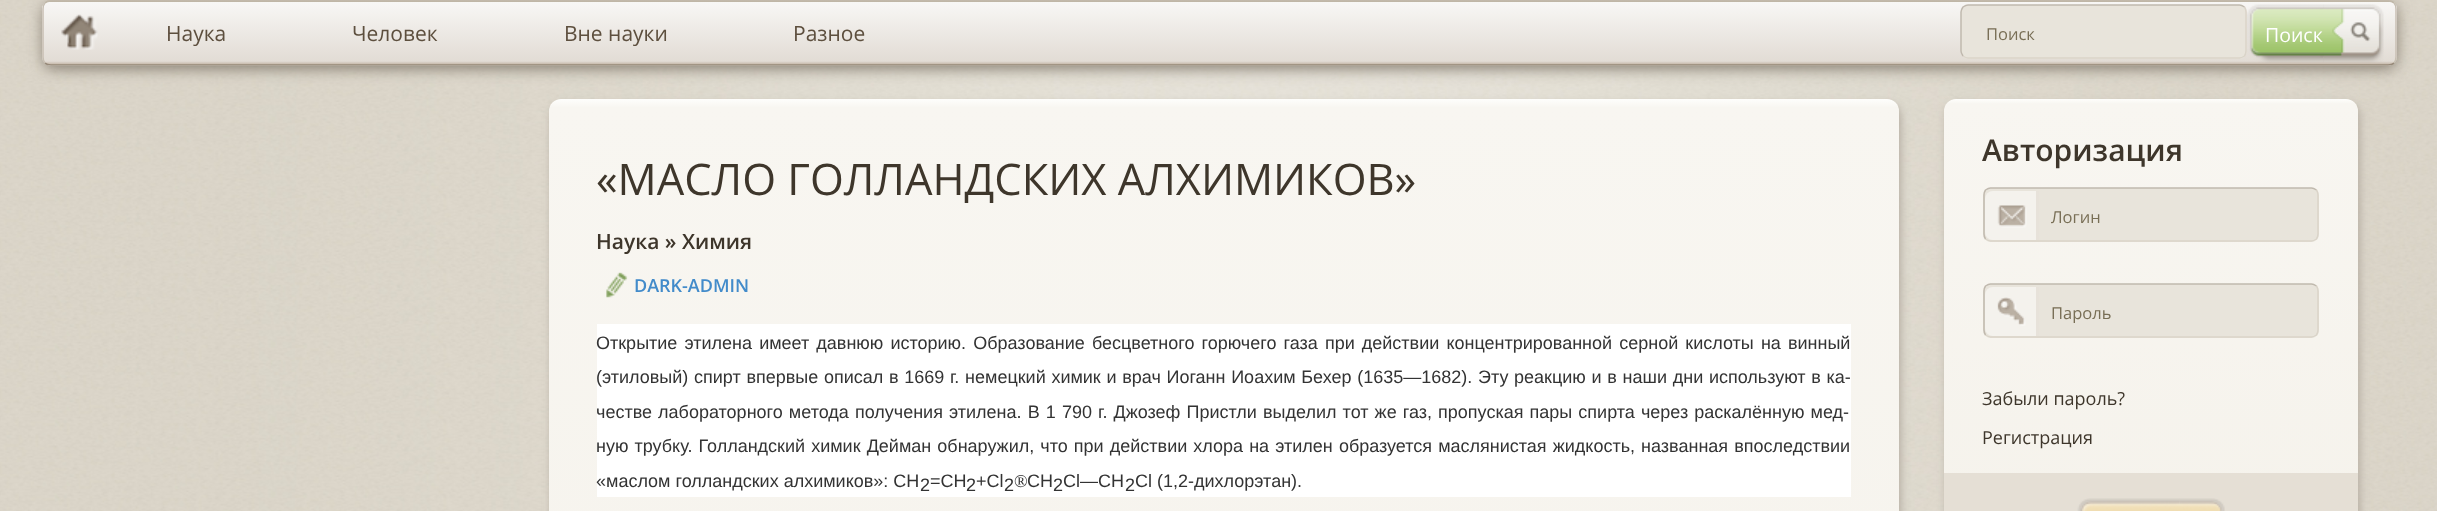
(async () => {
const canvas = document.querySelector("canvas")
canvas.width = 2437
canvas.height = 511
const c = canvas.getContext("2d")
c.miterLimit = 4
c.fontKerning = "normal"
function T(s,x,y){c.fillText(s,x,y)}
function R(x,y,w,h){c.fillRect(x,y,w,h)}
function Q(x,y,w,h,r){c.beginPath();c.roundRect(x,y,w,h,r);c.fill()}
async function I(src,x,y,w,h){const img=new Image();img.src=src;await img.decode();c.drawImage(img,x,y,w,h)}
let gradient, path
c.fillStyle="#fff"
R(0,0,2437,511)
await I("1.png",0,0,2437,511)
c.fillStyle="#80776a"
c.filter="blur(7.5px)"
c.beginPath()
c.roundRect(44,5,2352,63,8)
c.fill()
c.filter="none"
c.save()
c.beginPath()
c.roundRect(42,0,2355,66,9)
c.clip()
gradient = c.createLinearGradient(1220,-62,1220,1.5)
gradient.addColorStop(0,"#f8f7f5")
gradient.addColorStop(.94,"#e2dcd5")
gradient.addColorStop(1,"#bfb09f")
c.fillStyle = gradient
R(42,0,2355,2)
gradient = c.createLinearGradient(1220,1.5,1220,65)
gradient.addColorStop(0,"#f8f7f5")
gradient.addColorStop(.94,"#e2dcd5")
gradient.addColorStop(1,"#bfb09f")
c.fillStyle = gradient
R(42,2,2355,63)
gradient = c.createLinearGradient(1220,64,1220,128)
gradient.addColorStop(0,"#f8f7f5")
gradient.addColorStop(.94,"#e2dcd5")
gradient.addColorStop(1,"#bfb09f")
c.fillStyle = gradient
R(42,65,2355,1)
c.restore()
path = new Path2D("M45 3c1.5-1.5 4-2 6-2h2337c2 0 4.5 .5 6 2")
c.strokeStyle="#c0b8a9"
c.lineWidth=1.5
c.stroke(path)
path = new Path2D("M2394 3c1.5 1.5 2 4 2 6v48c0 2-.5 4.5-2 6")
c.strokeStyle="#c7bfb2"
c.stroke(path)
path = new Path2D("M2394 63c-1.5 1.5-4 2-6 2h-2337c-2 0-4.5-.5-6-2")
c.strokeStyle="#978a7a"
c.stroke(path)
path = new Path2D("M45 63c-1.5-1.5-2-4-2-6v-48c0-2 .5-4.5 2-6")
c.strokeStyle="#c7bfb2"
c.stroke(path)
await I("2.png",61,14,37,36)
c.font="21px Open Sans"
c.fillStyle="#5d4f3e"
T("Наука",166,41)
T("Человек",352,41)
T("Вне науки",564,41)
T("Разное",793,41)
c.fillStyle="#e8e4db"
Q(1961,5,286,54,8)
path = new Path2D("M2244.5 7c1 1.5 1.5 3 1.5 5v39c0 2-.5 3.5-1.5 5c-1.5 1-3 2-5 2h-271.5c-2 0-3.5-1-5-2")
c.strokeStyle="#dad4c9"
c.stroke(path)
path = new Path2D("M1963 56c-1-1.5-2-3-2-5v-39c0-2 1-3.5 2-5c1.5-1 3-2 5-2h271.5c2 0 3.5 1 5 2")
c.strokeStyle="#c0b9ae"
c.stroke(path)
c.font="16.5px Open Sans"
c.fillStyle="#786e55"
T("Поиск",1986,40)
await I("3.png",2319,4,65,59)
await I("4.png",2247,4,77,59)
c.font="19.5px Open Sans"
c.fillStyle="#fff"
T("Поиск",2265,42)
c.fillStyle="#b5ada2"
c.filter="blur(4px)"
c.beginPath()
c.roundRect(551,104,1350,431,12)
c.fill()
c.filter="none"
gradient = c.createLinearGradient(1224,99,1224,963)
gradient.addColorStop(0,"#fefefc")
gradient.addColorStop(.01,"#f8f6f1")
gradient.addColorStop(1,"#f5f2eb")
c.fillStyle = gradient
Q(549,99,1350,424,12)
c.font="43.5px Open Sans"
c.fillStyle="#3e362b"
T("«МАСЛО ГОЛЛАНДСКИХ АЛХИМИКОВ»",596,195)
c.font="600 21px Open Sans"
T("Наука » Химия",596,249)
await I("5.png",606,272,22,26)
c.font="600 18px Open Sans"
c.fillStyle="#428bca"
T("DARK-ADMIN",634,292)
c.fillStyle="#fff"
R(597,324,1254,173)
c.wordSpacing="2.1px"
c.font="18px Liberation Sans"
c.fillStyle="#333"
T("Открытие этилена имеет давнюю историю. Образование бесцветного горючего газа при действии концентрированной серной кислоты на винный",596,349)
c.wordSpacing="0.7px"
T("(этиловый) спирт впервые описал в 1669 г. немецкий химик и врач Иоганн Иоахим Бехер (1635—1682). Эту реакцию и в наши дни используют в ка-",596,383)
c.wordSpacing="1.1px"
T("честве лабораторного метода получения этилена. В 1 790 г. Джозеф Пристли выделил тот же газ, пропуская пары спирта через раскалённую мед-",596,418)
T("ную трубку. Голландский химик Дейман обнаружил, что при действии хлора на этилен образуется маслянистая жидкость, названная впоследствии",596,452)
c.wordSpacing="0px"
T("«маслом голландских алхимиков»: СН",596,487)
T("2",920,491)
T("=СН",930,487)
T("2",966,491)
T("+Cl",976,487)
T("2",1004,491)
c.font="18px Liberation Serif"
T("®",1014,487)
c.font="18px Liberation Sans"
T("CH",1027,487)
T("2",1053,491)
T("Cl—CH",1063,487)
T("2",1125,491)
T("Cl (1,2-дихлорэтан).",1135,487)
c.fillStyle="#b5ada2"
c.filter="blur(4px)"
c.beginPath()
c.roundRect(1946,104,414,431,12)
c.fill()
c.filter="none"
gradient = c.createLinearGradient(2151,99,2151,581)
gradient.addColorStop(0,"#fefefc")
gradient.addColorStop(.01,"#f8f6f1")
gradient.addColorStop(1,"#f5f2eb")
c.fillStyle = gradient
Q(1944,99,414,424,12)
c.font="600 30px Open Sans"
c.fillStyle="#3e362b"
T("Авторизация",1982,161)
c.fillStyle="#e8e4db"
Q(1983,188,336,54,8)
path = new Path2D("M2316.5 190c1 1.5 1.5 3 1.5 5v39c0 2-.5 3.5-1.5 5c-1.5 1-3 2-5 2h-321c-2 0-3.5-1-5-2")
c.strokeStyle="#dad4c9"
c.stroke(path)
path = new Path2D("M1985.5 239c-1-1.5-1.5-3-1.5-5v-39c0-2 .5-3.5 1.5-5c1.5-1 3-2 5-2h321c2 0 3.5 1 5 2")
c.strokeStyle="#c0b9ae"
c.stroke(path)
c.fillStyle="#f4f2ed"
c.beginPath()
c.roundRect(1985,191,54,49,[8,0,0,8])
c.fill()
await I("6.png",1997,205,30,23)
c.fillStyle="#e7e2da"
R(2036,191,3,49)
c.font="16.5px Open Sans"
c.fillStyle="#786e55"
T("Логин",2051,223)
c.fillStyle="#e8e4db"
Q(1983,284,336,54,8)
path = new Path2D("M2316.5 286c1 1.5 1.5 3 1.5 5v39c0 2-.5 3.5-1.5 5c-1.5 1-3 2-5 2h-321c-2 0-3.5-1-5-2")
c.strokeStyle="#dad4c9"
c.stroke(path)
path = new Path2D("M1985.5 335c-1-1.5-1.5-3-1.5-5v-39c0-2 .5-3.5 1.5-5c1.5-1 3-2 5-2h321c2 0 3.5 1 5 2")
c.strokeStyle="#c0b9ae"
c.stroke(path)
c.fillStyle="#f4f2ed"
c.beginPath()
c.roundRect(1985,287,54,49,[8,0,0,8])
c.fill()
await I("7.png",1997,297,29,29)
c.fillStyle="#e7e2da"
R(2036,287,3,49)
c.fillStyle="#786e55"
T("Пароль",2051,319)
c.font="18px Open Sans"
c.fillStyle="#3e362b"
T("Забыли пароль?",1982,405)
T("Регистрация",1982,444)
c.fillStyle="#e5dfd5"
R(1944,473,414,38)
await I("8.png",2176,498,49,13)
await I("9.png",2077,498,103,13)
})()
